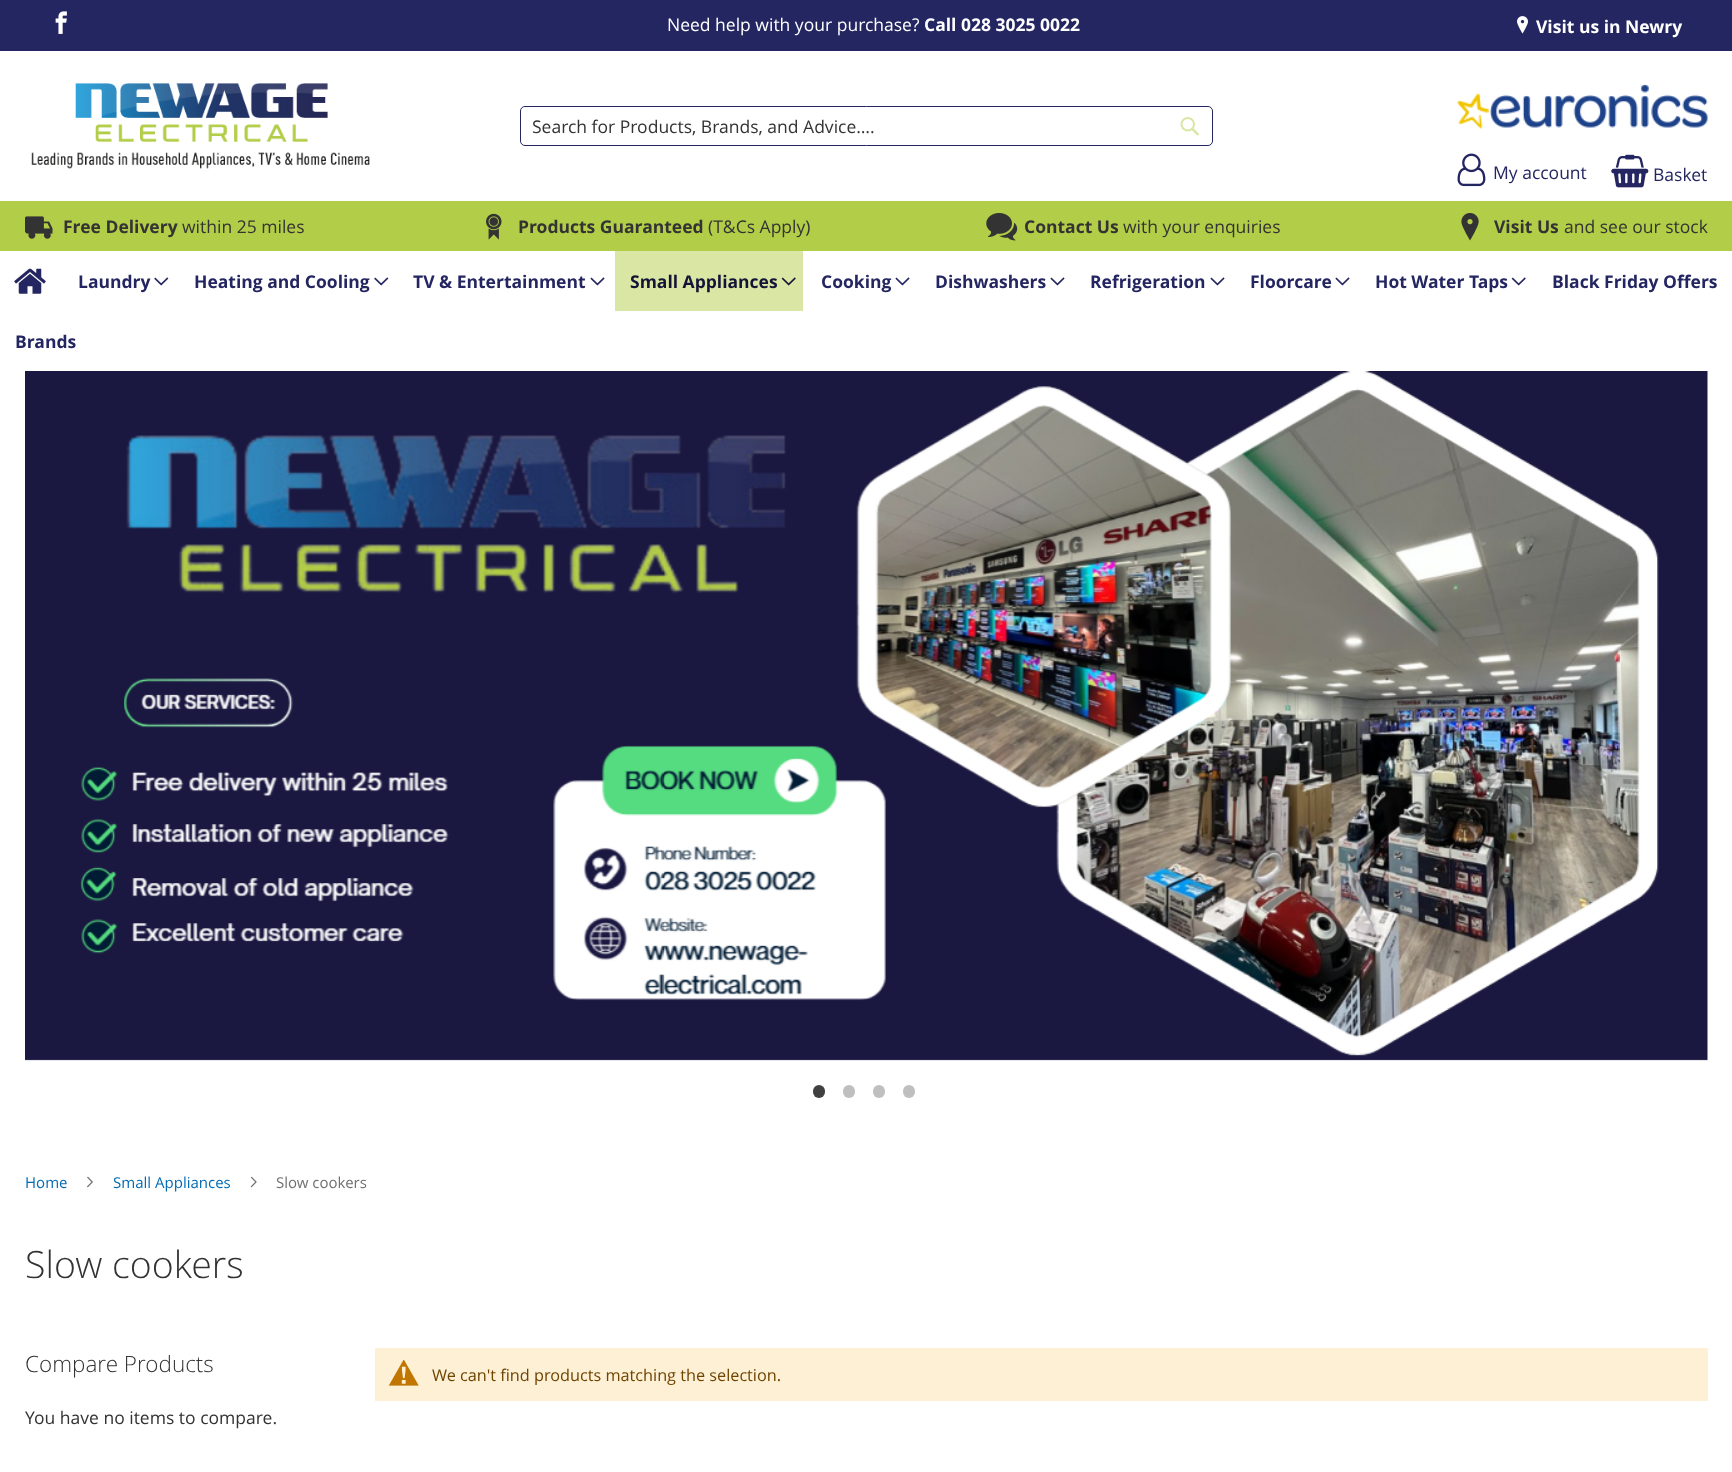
(async () => {
const canvas = document.querySelector("canvas")
canvas.width = 1732
canvas.height = 1472
const c = canvas.getContext("2d")
c.miterLimit = 4
c.fontKerning = "normal"
function T(s,x,y){c.fillText(s,x,y)}
function R(x,y,w,h){c.fillRect(x,y,w,h)}
function Q(x,y,w,h,r){c.beginPath();c.roundRect(x,y,w,h,r);c.fill()}
async function I(src,x,y,w,h){const img=new Image();img.src=src;await img.decode();c.drawImage(img,x,y,w,h)}
c.fillStyle="#fff"
R(0,0,1732,1472)
c.fillStyle="#242661"
R(0,0,1732,51)
await I("1.png",55,11,12,23)
c.font="17.5px Open Sans"
c.fillStyle="#fff"
T("Need help with your purchase?",667,31)
c.font="bold 17.5px Open Sans"
T("Call 028 3025 0022",924,31)
await I("2.png",1517,16,11,18)
T("Visit us in Newry",1536,33)
await I("3.png",31,83,339,86)
c.beginPath()
c.roundRect(520.5,106.5,692,39,4.5)
c.strokeStyle="#242661"
c.stroke()
c.font="17.5px Open Sans"
c.fillStyle="#333"
T("Search for Products, Brands, and Advice….",532,133)
await I("4.png",1180,117,19,19)
await I("5.png",1457,84,251,45)
await I("6.png",1457,153,29,34)
c.fillStyle="#242661"
T("My account",1493,179)
await I("7.png",1611,154,38,34)
T("Basket",1653,181)
c.fillStyle="#b2cd47"
R(0,201,1732,50)
await I("8.png",25,216,28,23)
c.font="bold 17.5px Open Sans"
c.fillStyle="#333"
T("Free Delivery",63,233)
c.font="17.5px Open Sans"
T("within 25 miles",182,233)
await I("9.png",486,213,16,27)
c.font="bold 17.5px Open Sans"
T("Products Guaranteed",518,233)
c.font="17.5px Open Sans"
T("(T&Cs Apply)",708,233)
await I("10.png",986,213,32,28)
c.font="bold 17.5px Open Sans"
T("Contact Us",1024,233)
c.font="17.5px Open Sans"
T("with your enquiries",1123,233)
await I("11.png",1461,213,18,28)
c.font="bold 17.5px Open Sans"
T("Visit Us",1494,233)
c.font="17.5px Open Sans"
T("and see our stock",1564,233)
await I("12.png",14,268,32,26)
c.font="bold 17.5px Open Sans"
c.fillStyle="#242661"
T("Laundry",78,288)
await I("13.png",154,277,15,9)
T("Heating and Cooling",194,288)
await I("13.png",374,277,15,9)
T("TV & Entertainment",413,288)
await I("14.png",590,277,15,9)
c.fillStyle="#d9e6a4"
R(615,251,188,60)
c.fillStyle="#141536"
T("Small Appliances",630,288)
await I("15.png",781,277,15,9)
c.fillStyle="#242661"
T("Cooking",821,288)
await I("14.png",895,277,15,9)
T("Dishwashers",935,288)
await I("14.png",1050,277,15,9)
T("Refrigeration",1090,288)
await I("14.png",1210,277,15,9)
T("Floorcare",1250,288)
await I("14.png",1335,277,15,9)
T("Hot Water Taps",1375,288)
await I("16.png",1511,277,15,9)
T("Black Friday Offers",1552,288)
T("Brands",15,348)
await I("17.png",25,371,1683,690)
c.fillStyle="#404040"
Q(813,1085,12,13,6)
c.fillStyle="#bfbfbf"
Q(843,1085,12,13,6)
Q(873,1085,12,13,6)
Q(903,1085,12,13,6)
c.font="15px Open Sans"
c.fillStyle="#006bb4"
T("Home",25,1188)
await I("18.png",87,1176,6,12)
T("Small Appliances",113,1188)
await I("19.png",250,1176,7,12)
c.fillStyle="#707070"
T("Slow cookers",276,1188)
c.font="300 37.5px Open Sans"
c.fillStyle="#333"
T("Slow cookers",25,1278)
c.font="300 22.5px Open Sans"
T("Compare Products",25,1372)
c.font="17.5px Open Sans"
T("You have no items to compare.",25,1424)
c.fillStyle="#fdf0d5"
R(375,1348,1333,53)
await I("20.png",388,1360,31,26)
c.font="16.25px Open Sans"
c.fillStyle="#6f4400"
T("We can't find products matching the selection.",432,1381)
})()
